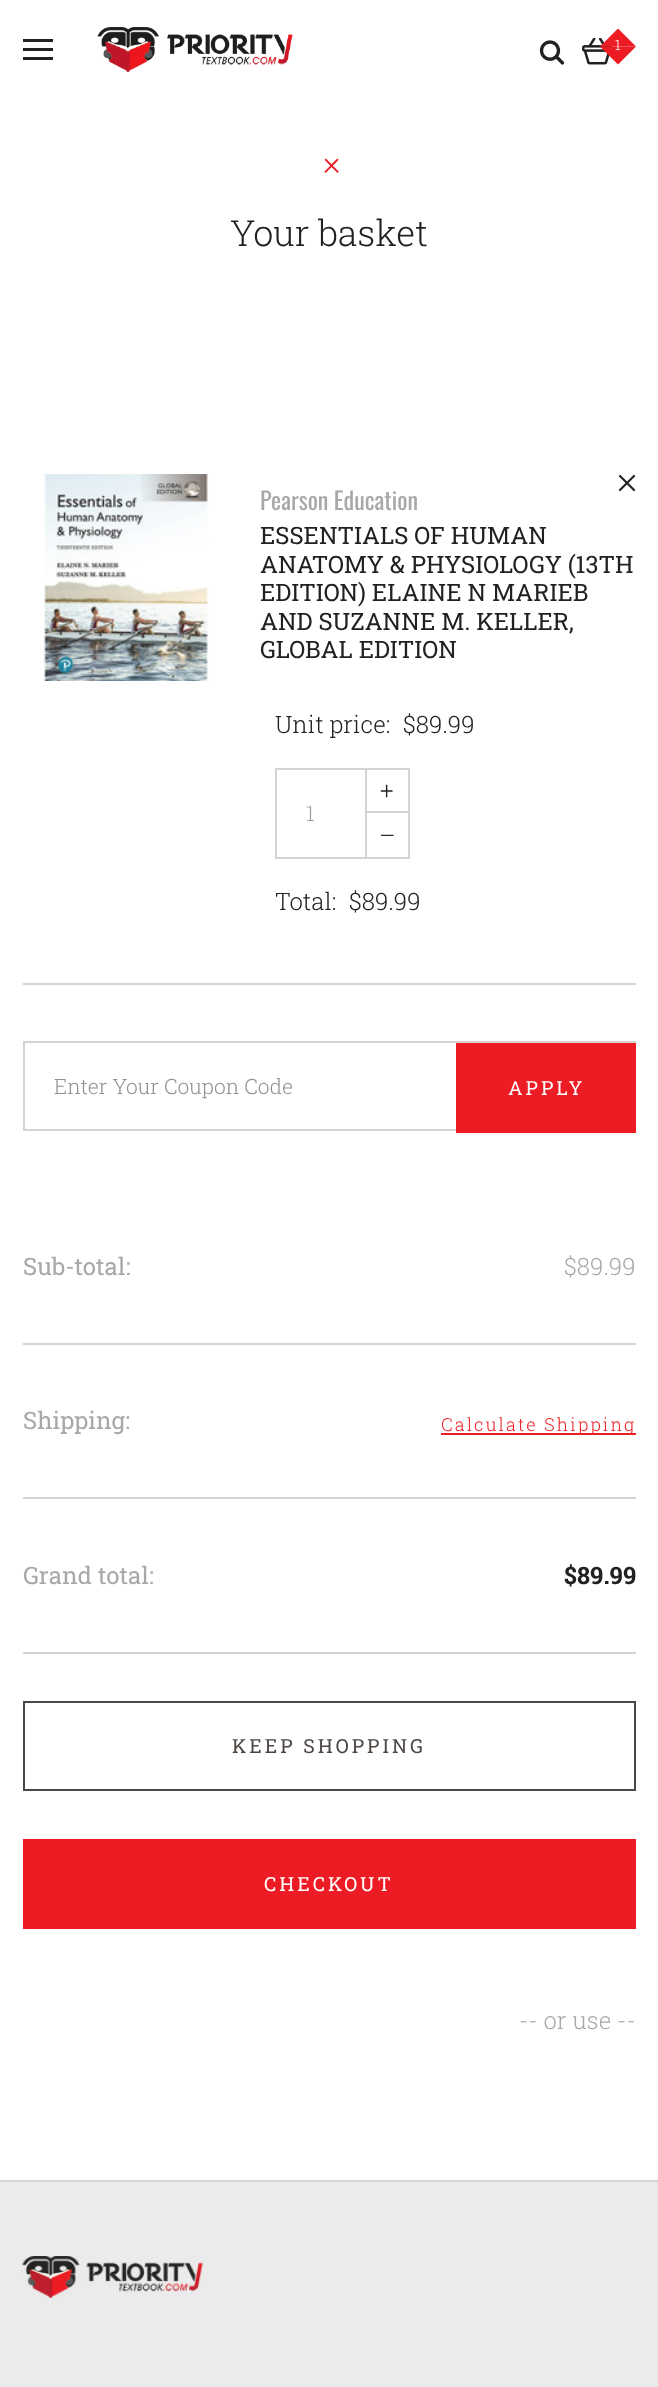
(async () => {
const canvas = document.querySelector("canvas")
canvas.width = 658
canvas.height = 2387
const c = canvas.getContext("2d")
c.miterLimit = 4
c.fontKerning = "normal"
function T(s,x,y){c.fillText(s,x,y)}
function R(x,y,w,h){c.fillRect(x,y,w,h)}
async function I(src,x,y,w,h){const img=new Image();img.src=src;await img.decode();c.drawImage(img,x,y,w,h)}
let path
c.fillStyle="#fff"
R(0,0,658,2387)
c.fillStyle="#212121"
R(23,48,30,3)
R(23,39,30,3)
R(23,57,30,3)
await I("1.png",97,27,196,45)
await I("2.png",539,40,26,25)
await I("3.png",582,38,31,27)
c.fillStyle="#ed1c24"
path = new Path2D("M636 46.5h-36l18-18z")
c.fill(path)
path = new Path2D("M600 46.5h36l-18 18z")
c.fill(path)
c.font="300 14px Roboto Slab"
c.fillStyle="#fff"
T("1",615,50)
c.font="300 34px Roboto Slab"
c.fillStyle="#ed1c24"
T("×",323,177)
c.font="300 36px Roboto Slab"
c.fillStyle="#212121"
T("Your basket",230,246)
c.fillStyle="#d4d4d4"
R(23,983,613,2)
await I("4.png",43,474,166,207)
c.font="24px Oswald"
c.fillStyle="#a8a8a8"
T("Pearson Education",260,510)
c.font="24px Roboto Slab"
c.fillStyle="#212121"
T("ESSENTIALS OF HUMAN",260,544)
T("ANATOMY & PHYSIOLOGY (13TH",260,573)
T("EDITION) ELAINE N MARIEB",260,601)
T("AND SUZANNE M. KELLER,",260,630)
T("GLOBAL EDITION",260,658)
c.font="300 24px Roboto Slab"
T("Unit price:",275,733)
T("$89.99",403,733)
c.strokeStyle="#d4d4d4"
c.lineWidth=2
c.strokeRect(366,769,43,43)
T("+",380,799)
c.fillStyle="#d4d4d4"
R(275,768,90,2)
R(275,857,90,2)
R(275,768,2,90)
c.font="300 21px Roboto Slab"
c.fillStyle="#9b9b9b"
T("1",306,821)
c.fillStyle="#d4d4d4"
R(408,813,2,45)
R(365,857,45,2)
R(365,813,2,45)
c.font="300 24px Roboto Slab"
c.fillStyle="#212121"
T("–",379,844)
await I("5.png",618,474,18,18)
T("Total:",275,910)
T("$89.99",349,910)
c.strokeRect(24,1042,434,88)
c.font="300 21px Roboto Slab"
c.fillStyle="#919191"
T("Enter Your Coupon Code",54,1094)
c.fillStyle="#d4d4d4"
R(459,1041,177,2)
c.fillStyle="#ed1c24"
R(456,1043,180,90)
c.letterSpacing="3px"
c.font="19.5px Roboto Slab"
c.fillStyle="#fff"
T("APPLY",508,1095)
c.fillStyle="#d4d4d4"
R(23,1343,613,2)
c.letterSpacing="0px"
c.font="24px Roboto Slab"
c.fillStyle="#a8a8a8"
T("Sub-total:",23,1275)
c.font="300 24px Roboto Slab"
T("$89.99",564,1275)
c.fillStyle="#d4d4d4"
R(23,1497,613,2)
c.font="24px Roboto Slab"
c.fillStyle="#a8a8a8"
T("Shipping:",23,1429)
c.fillStyle="#ed1c24"
R(441,1433,195,2)
c.letterSpacing="2.1px"
c.font="300 18px Roboto Slab"
T("Calculate Shipping",441,1431)
c.fillStyle="#d4d4d4"
R(23,1652,613,2)
c.letterSpacing="0px"
c.font="24px Roboto Slab"
c.fillStyle="#a8a8a8"
T("Grand total:",23,1584)
c.font="bold 24px Roboto Slab"
c.fillStyle="#212121"
T("$89.99",564,1584)
c.strokeStyle="#4d4744"
c.strokeRect(24,1702,611,88)
c.letterSpacing="3px"
c.font="19.5px Roboto Slab"
c.fillStyle="#4d4744"
T("KEEP SHOPPING",232,1753)
c.fillStyle="#ed1c24"
R(23,1839,613,90)
c.fillStyle="#fff"
T("CHECKOUT",264,1891)
c.letterSpacing="0px"
c.font="300 24px Roboto Slab"
c.fillStyle="#a8a8a8"
T("-- or use --",519,2029)
c.fillStyle="#ebebeb"
R(0,2182,658,205)
c.fillStyle="#d4d4d4"
R(0,2180,658,2)
await I("6.png",22,2256,181,42)
})()
